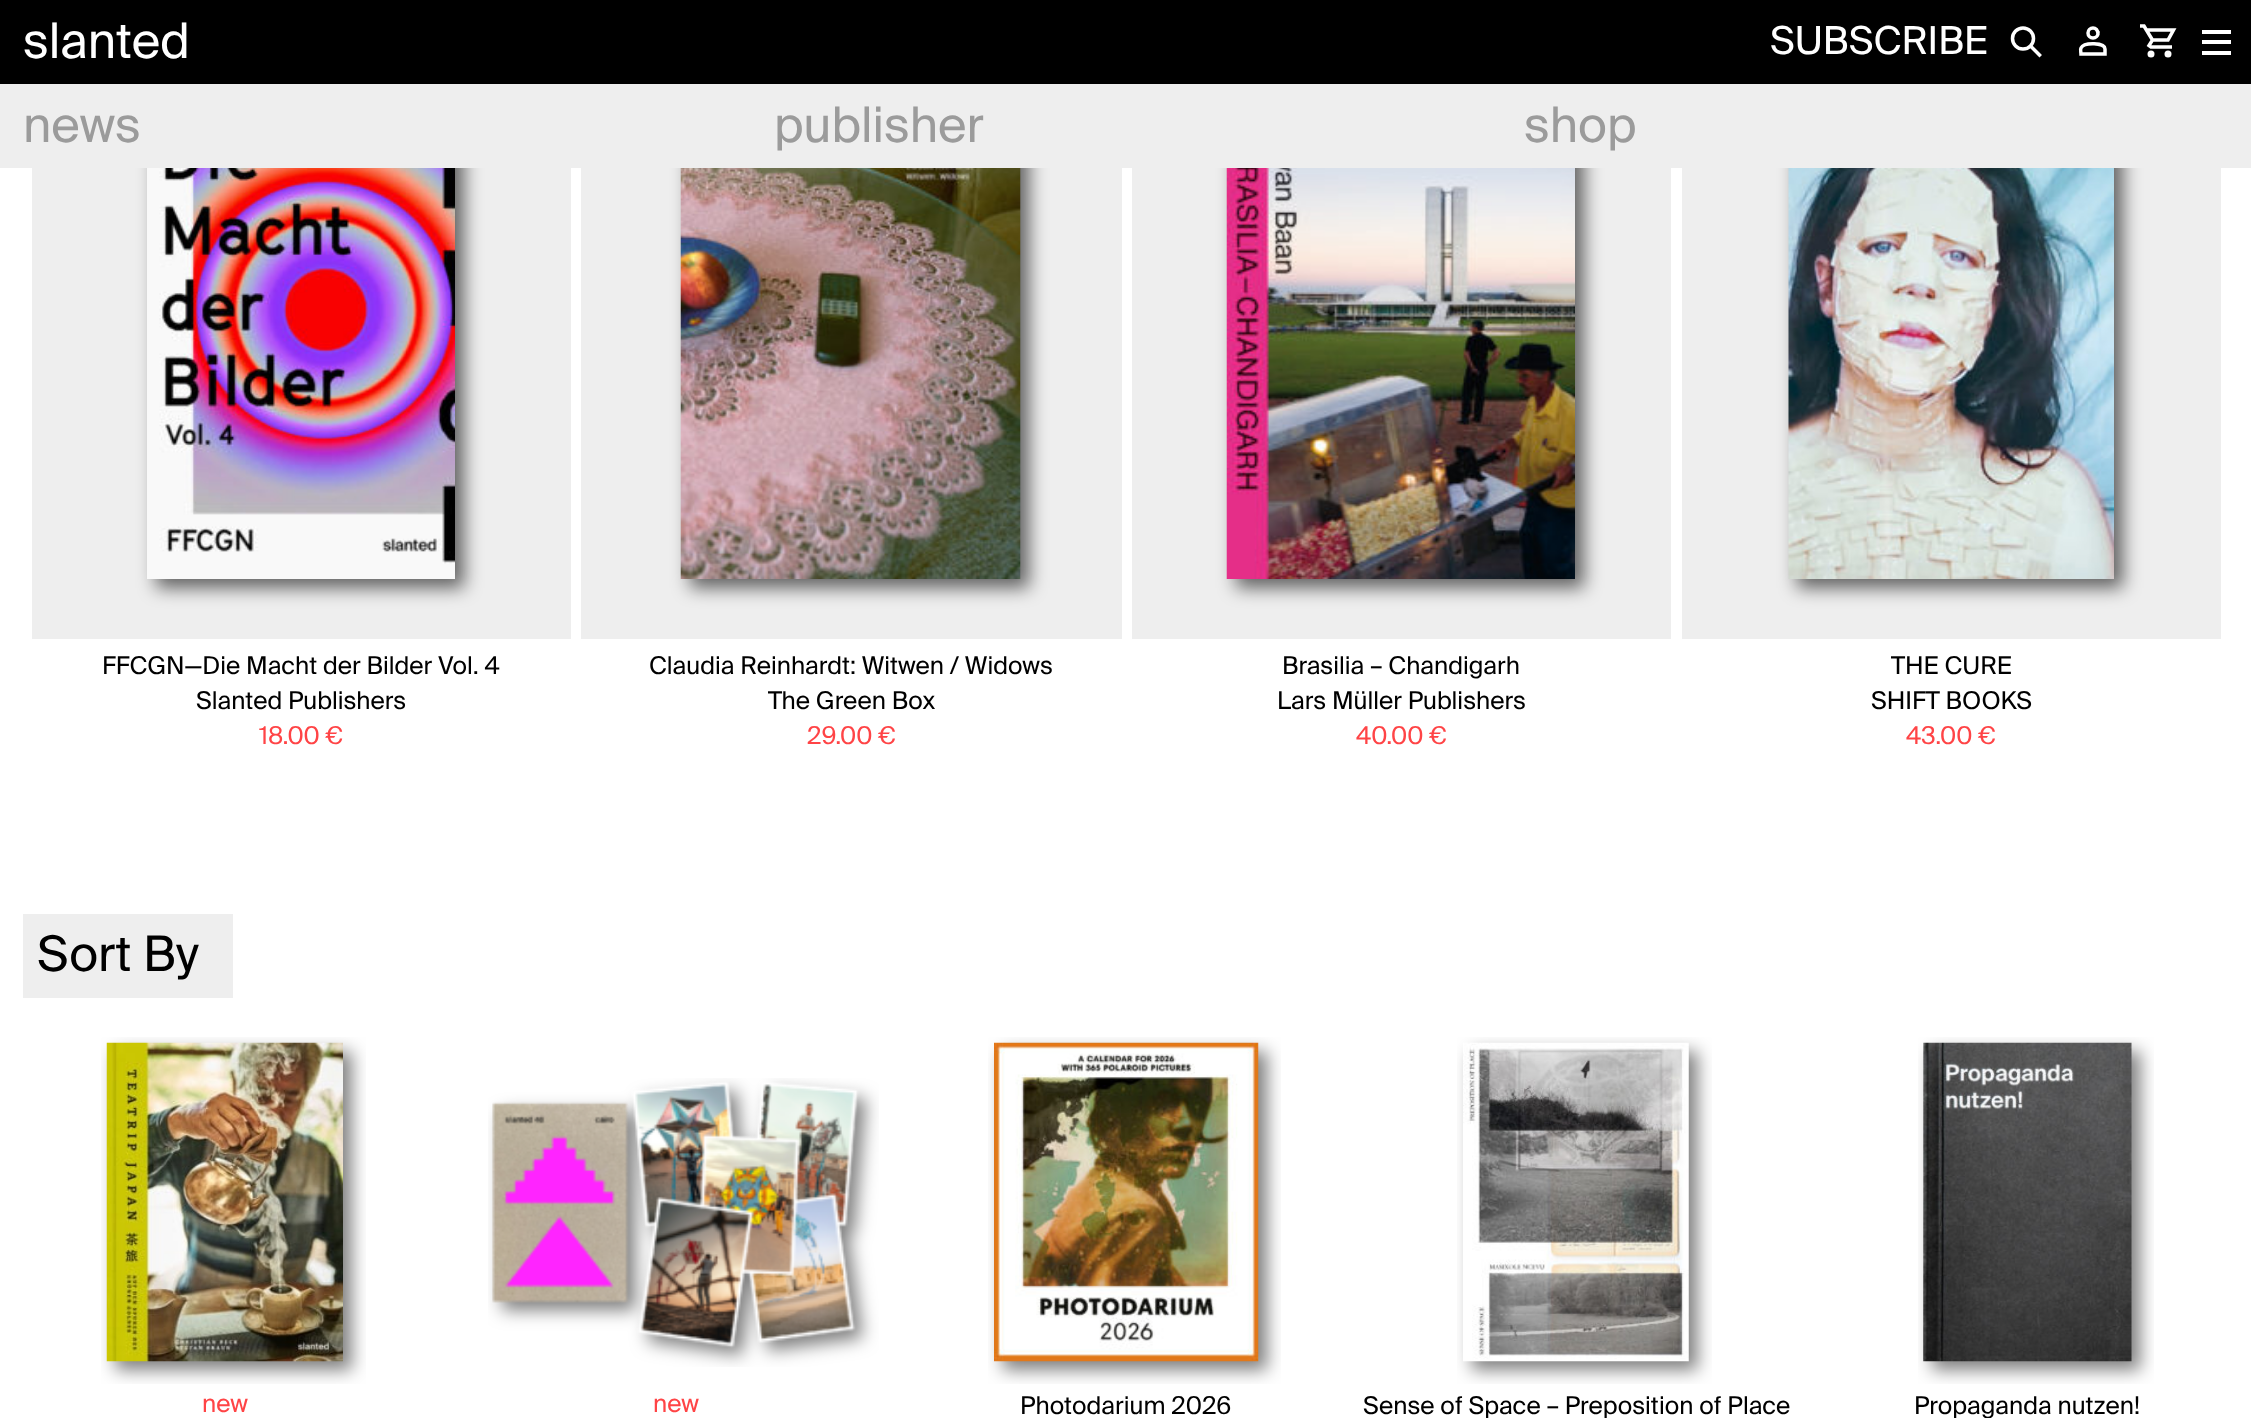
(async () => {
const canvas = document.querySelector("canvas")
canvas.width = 2251
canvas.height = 1418
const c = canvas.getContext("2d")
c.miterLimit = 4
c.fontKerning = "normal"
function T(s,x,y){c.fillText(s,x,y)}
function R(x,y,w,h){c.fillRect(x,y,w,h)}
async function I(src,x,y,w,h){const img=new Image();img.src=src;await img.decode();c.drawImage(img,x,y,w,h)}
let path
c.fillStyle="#fff"
R(0,0,2251,1418)
c.fillStyle="#000"
R(0,0,2251,84)
c.font="49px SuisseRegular"
c.fillStyle="#fff"
T("slanted",23,58)
c.font="38.5px SuisseRegular"
T("SUBSCRIBE",1770,54)
c.beginPath()
c.arc(2023,38.5,10.5,0,7)
c.strokeStyle="#fff"
c.lineWidth=3.5
c.stroke()
path = new Path2D("M2031 46.5l8.5 8.5")
c.lineCap="square"
c.stroke(path)
c.beginPath()
c.arc(2093,33,5,0,7)
c.stroke()
path = new Path2D("M2105 49c0-6.5-21-7-24-1c-1 1.5 0 4.5 0 6h24z")
c.lineCap="butt"
c.stroke(path)
path = new Path2D("M2140 26h4l8.5 14l-3.5 5.5l2 1.5h21m-26.5-17h28l-5.5 10h-15.5")
c.stroke(path)
c.beginPath()
c.arc(2151,54,3.5,0,7)
c.fill()
c.beginPath()
c.arc(2168,54,3.5,0,7)
c.fill()
R(2202,30,29,4)
R(2202,40,29,4)
R(2202,51,29,4)
c.fillStyle="#eee"
R(32,168,539,471)
c.fillStyle="#00000096"
c.filter="blur(9px)"
c.beginPath()
c.rect(156,128,308,460)
c.fill()
c.filter="none"
c.fillStyle="#eee"
R(581,168,541,471)
c.fillStyle="#00000096"
c.filter="blur(9px)"
c.beginPath()
c.rect(690,128,339,460)
c.fill()
c.filter="none"
c.fillStyle="#eee"
R(1132,168,539,471)
c.fillStyle="#00000096"
c.filter="blur(9px)"
c.beginPath()
c.rect(1236,128,348,460)
c.fill()
c.filter="none"
c.fillStyle="#eee"
R(1682,168,539,471)
c.fillStyle="#00000096"
c.filter="blur(9px)"
c.beginPath()
c.rect(1797,128,326,460)
c.fill()
c.filter="none"
c.fillStyle="#eee"
R(0,84,2251,84)
c.font="49px SuisseRegular"
c.fillStyle="#9b9b9b"
T("news",23,142)
T("publisher",774,142)
T("shop",1524,142)
await I("1.png",147,168,308,411)
c.font="24.5px SuisseRegular"
c.fillStyle="#000"
T("FFCGN—Die Macht der Bilder Vol. 4",102,674)
T("Slanted Publishers",196,709)
c.fillStyle="#ff4446"
T("18.00 €",259,744)
await I("2.png",680,168,341,411)
c.fillStyle="#000"
T("Claudia Reinhardt: Witwen / Widows",649,674)
T("The Green Box",768,709)
c.fillStyle="#ff4446"
T("29.00 €",807,744)
await I("3.png",1226,168,349,411)
c.fillStyle="#000"
T("Brasilia – Chandigarh",1282,674)
T("Lars Müller Publishers",1277,709)
c.fillStyle="#ff4446"
T("40.00 €",1356,744)
await I("4.png",1788,168,326,411)
c.fillStyle="#000"
T("THE CURE",1891,674)
T("SHIFT BOOKS",1871,709)
c.fillStyle="#ff4446"
T("43.00 €",1906,744)
c.fillStyle="#eee"
R(23,914,210,84)
c.font="49px SuisseRegular"
c.fillStyle="#000"
T("Sort By",37,971)
await I("5.png",101,1037,265,347)
c.font="24.5px SuisseRegular"
c.fillStyle="#ff4446"
T("new",202,1412)
await I("6.png",488,1078,391,289)
T("new",653,1412)
await I("7.png",988,1037,293,347)
c.fillStyle="#000"
T("Photodarium 2026",1020,1414)
await I("8.png",1457,1037,255,347)
T("Sense of Space – Preposition of Place",1363,1414)
await I("9.png",1918,1037,236,347)
T("Propaganda nutzen!",1914,1414)
})()
